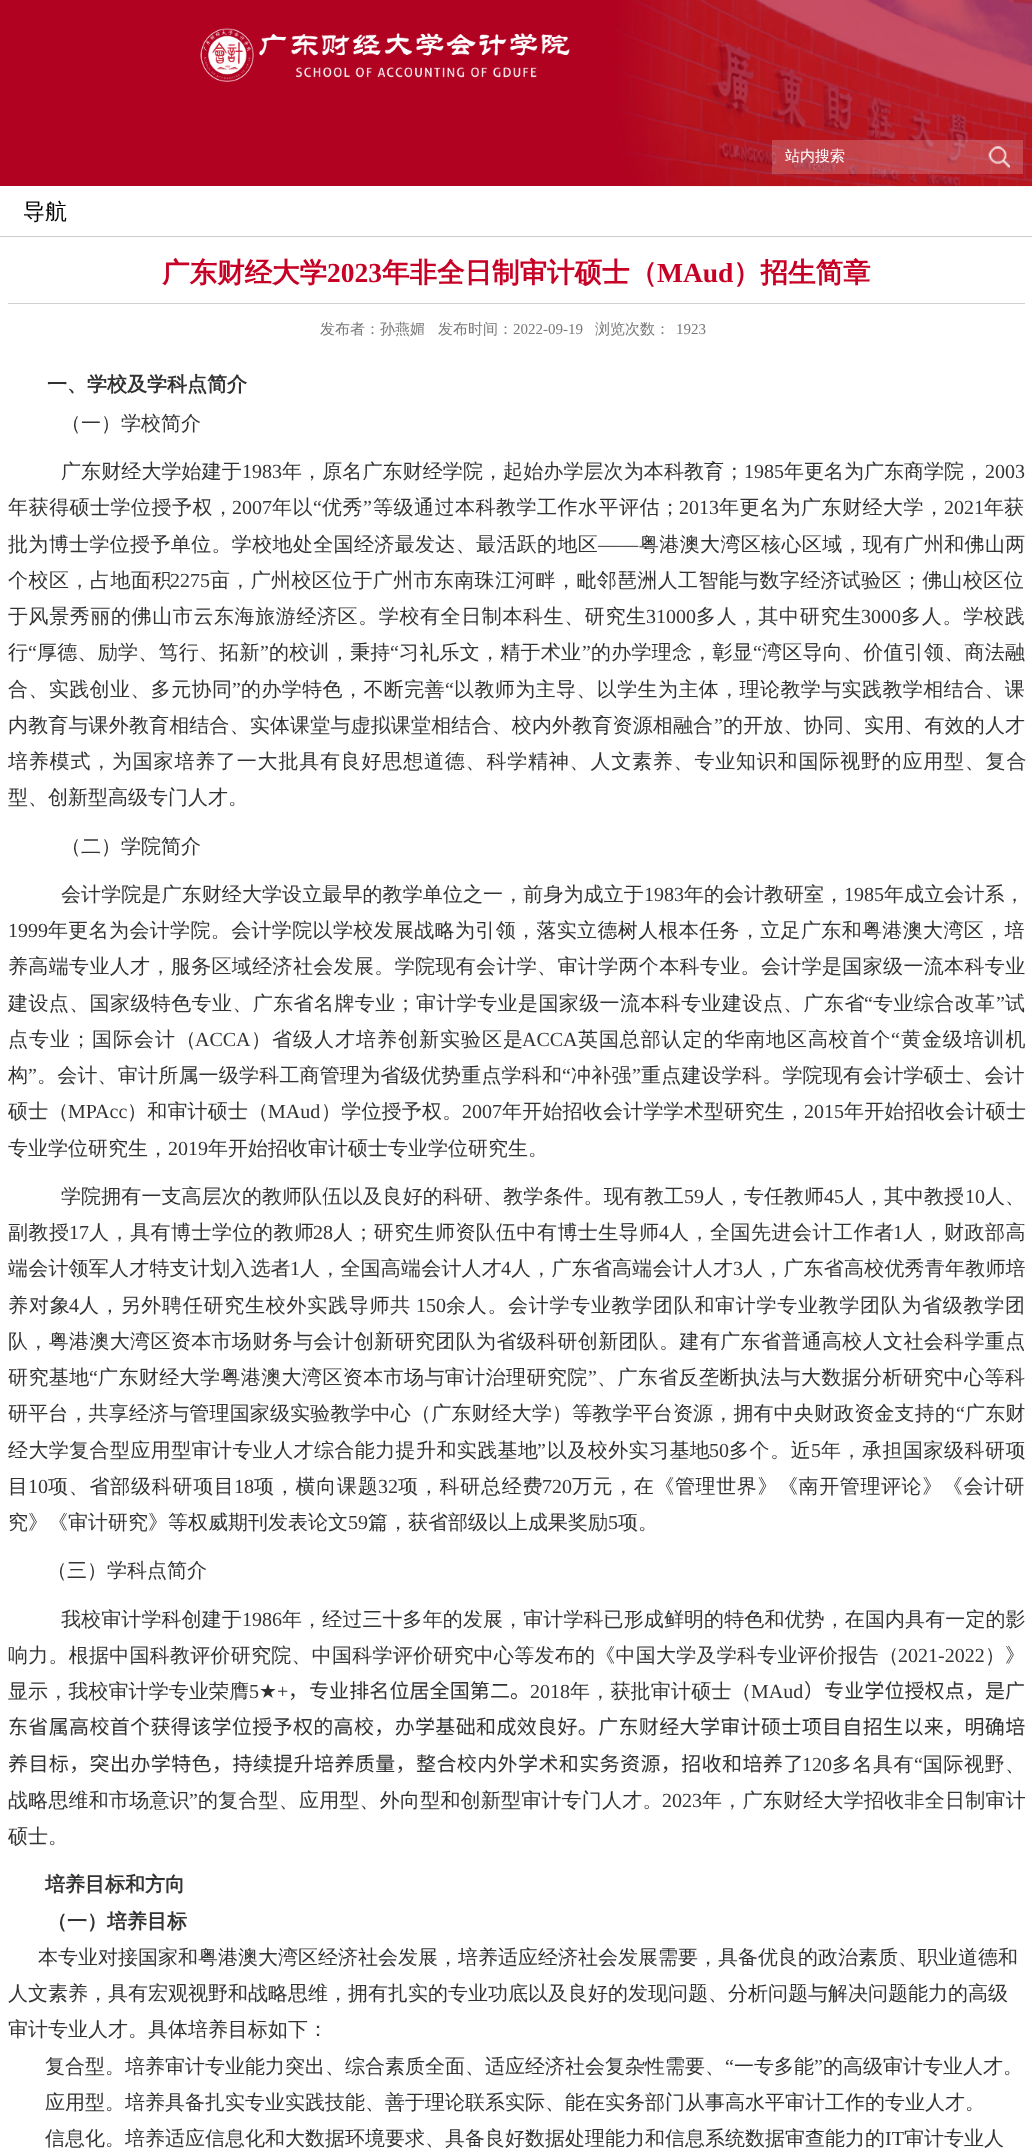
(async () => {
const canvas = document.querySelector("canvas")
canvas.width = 1032
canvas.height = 2155
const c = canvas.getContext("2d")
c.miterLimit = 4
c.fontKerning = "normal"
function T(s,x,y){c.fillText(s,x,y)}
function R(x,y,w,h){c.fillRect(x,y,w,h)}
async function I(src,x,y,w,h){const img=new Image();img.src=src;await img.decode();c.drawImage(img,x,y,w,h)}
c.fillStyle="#fff"
R(0,0,1032,2155)
c.fillStyle="#b10222"
R(0,0,1032,186)
await I("1.png",616,0,416,187)
await I("2.png",200,28,370,54)
c.fillStyle="#ffffff33"
R(772,140,251,34)
c.font="500 15px WenQuanYi Zen Hei"
c.fillStyle="#fff"
T("站内搜索",785,161)
await I("3.png",988,146,22,22)
c.fillStyle="#ccc"
R(0,236,1032,1)
c.font="500 22px WenQuanYi Zen Hei"
c.fillStyle="#010101"
T("导航",23,219)
c.font="bold 27.5px WenQuanYi Zen Hei"
c.fillStyle="#c70125"
T("广东财经大学",162,282)
c.font="bold 27.5px Liberation Serif"
T("2023",327,282)
c.font="bold 27.5px WenQuanYi Zen Hei"
T("年非全日制审计硕士（",382,282)
c.font="bold 27.5px Liberation Serif"
T("MAud",657,282)
c.font="bold 27.5px WenQuanYi Zen Hei"
T("）招生简章",733,282)
c.fillStyle="#d0d0d0"
R(8,303,1017,1)
c.font="500 15px WenQuanYi Zen Hei"
c.fillStyle="#787878"
T("发布者：孙燕媚",320,334)
T("发布时间：",438,334)
c.font="15px Liberation Serif"
T("2022-09-19",513,334)
c.font="500 15px WenQuanYi Zen Hei"
T("浏览次数：",595,334)
c.font="15px Liberation Serif"
T("1923",676,334)
c.font="bold 20px WenQuanYi Zen Hei"
c.fillStyle="#333"
T("一、学校及学科点简介",47,391)
c.font="500 20px WenQuanYi Zen Hei"
T("（一）学校简介",61,430)
c.letterSpacing="0.1px"
T("广东财经大学始建于",61,478)
c.letterSpacing="0px"
c.font="20px Liberation Serif"
T("1983",242,478)
c.letterSpacing="0.1px"
c.font="500 20px WenQuanYi Zen Hei"
T("年，原名广东财经学院，起始办学层次为本科教育；",282,478)
c.letterSpacing="0px"
c.font="20px Liberation Serif"
T("1985",744,478)
c.font="500 20px WenQuanYi Zen Hei"
T("年更名为广东商学院，",784,478)
c.font="20px Liberation Serif"
T("2003",985,478)
c.letterSpacing="0.5px"
c.font="500 20px WenQuanYi Zen Hei"
T("年获得硕士学位授予权，",8,514)
c.letterSpacing="0px"
c.font="20px Liberation Serif"
T("2007",232,514)
c.letterSpacing="0.5px"
c.font="500 20px WenQuanYi Zen Hei"
T("年以",272,514)
c.font="20px Liberation Serif"
T("“",313,514)
c.font="500 20px WenQuanYi Zen Hei"
T("优秀",322,514)
c.font="20px Liberation Serif"
T("”",363,514)
c.font="500 20px WenQuanYi Zen Hei"
T("等级通过本科教学工作水平评估；",373,514)
c.letterSpacing="0px"
c.font="20px Liberation Serif"
T("2013",679,514)
c.letterSpacing="0.5px"
c.font="500 20px WenQuanYi Zen Hei"
T("年更名为广东财经大学，",719,514)
c.letterSpacing="0px"
c.font="20px Liberation Serif"
T("2021",944,514)
c.font="500 20px WenQuanYi Zen Hei"
T("年获",984,514)
c.letterSpacing="0.35px"
T("批为博士学位授予单位。学校地处全国经济最发达、最活跃的地区",8,551)
c.font="20px Liberation Serif"
T("——",598,551)
c.font="500 20px WenQuanYi Zen Hei"
T("粤港澳大湾区核心区域，现有广州和佛山两",639,551)
c.letterSpacing="0.5px"
T("个校区，占地面积",8,587)
c.letterSpacing="0px"
c.font="20px Liberation Serif"
T("2275",170,587)
c.letterSpacing="0.35px"
c.font="500 20px WenQuanYi Zen Hei"
T("亩，广州校区位于广州市东南珠江河畔，毗邻琶洲人工智能与数字经济试验区；佛山校区位",210,587)
c.letterSpacing="0.6px"
T("于风景秀丽的佛山市云东海旅游经济区。学校有全日制本科生、研究生",8,623)
c.letterSpacing="0px"
c.font="20px Liberation Serif"
T("31000",646,623)
c.letterSpacing="0.75px"
c.font="500 20px WenQuanYi Zen Hei"
T("多人，其中研究生",696,623)
c.letterSpacing="0px"
c.font="20px Liberation Serif"
T("3000",861,623)
c.letterSpacing="0.75px"
c.font="500 20px WenQuanYi Zen Hei"
T("多人。学校践",901,623)
c.letterSpacing="0.25px"
T("行",8,659)
c.font="20px Liberation Serif"
T("“",28,659)
c.font="500 20px WenQuanYi Zen Hei"
T("厚德、励学、笃行、拓新",37,659)
c.font="20px Liberation Serif"
T("”",260,659)
c.font="500 20px WenQuanYi Zen Hei"
T("的校训，秉持",269,659)
c.font="20px Liberation Serif"
T("“",390,659)
c.font="500 20px WenQuanYi Zen Hei"
T("习礼乐文，精于术业",399,659)
c.font="20px Liberation Serif"
T("”",582,659)
c.font="500 20px WenQuanYi Zen Hei"
T("的办学理念，彰显",591,659)
c.font="20px Liberation Serif"
T("“",753,659)
c.font="500 20px WenQuanYi Zen Hei"
T("湾区导向、价值引领、商法融",762,659)
c.letterSpacing="0.4px"
T("合、实践创业、多元协同",8,696)
c.font="20px Liberation Serif"
T("”",232,696)
c.font="500 20px WenQuanYi Zen Hei"
T("的办学特色，不断完善",241,696)
c.font="20px Liberation Serif"
T("“",445,696)
c.font="500 20px WenQuanYi Zen Hei"
T("以教师为主导、以学生为主体，理论教学与实践教学相结合、课",454,696)
c.letterSpacing="0.15px"
T("内教育与课外教育相结合、实体课堂与虚拟课堂相结合、校内外教育资源相融合",8,732)
c.font="20px Liberation Serif"
T("”",714,732)
c.font="500 20px WenQuanYi Zen Hei"
T("的开放、协同、实用、有效的人才",723,732)
c.letterSpacing="0.8px"
T("培养模式，为国家培养了一大批具有良好思想道德、科学精神、人文素养、专业知识和国际视野的应用型、复合",8,768)
c.letterSpacing="0px"
T("型、创新型高级专门人才。",8,804)
T("（二）学院简介",61,853)
c.letterSpacing="0.1px"
T("会计学院是广东财经大学设立最早的教学单位之一，前身为成立于",61,901)
c.letterSpacing="0px"
c.font="20px Liberation Serif"
T("1983",644,901)
c.font="500 20px WenQuanYi Zen Hei"
T("年的会计教研室，",684,901)
c.font="20px Liberation Serif"
T("1985",844,901)
c.letterSpacing="0.1px"
c.font="500 20px WenQuanYi Zen Hei"
T("年成立会计系，",884,901)
c.letterSpacing="0px"
c.font="20px Liberation Serif"
T("1999",8,937)
c.letterSpacing="0.35px"
c.font="500 20px WenQuanYi Zen Hei"
T("年更名为会计学院。会计学院以学校发展战略为引领，落实立德树人根本任务，立足广东和粤港澳大湾区，培",48,937)
T("养高端专业人才，服务区域经济社会发展。学院现有会计学、审计学两个本科专业。会计学是国家级一流本科专业",8,973)
c.letterSpacing="0.4px"
T("建设点、国家级特色专业、广东省名牌专业；审计学专业是国家级一流本科专业建设点、广东省",8,1010)
c.font="20px Liberation Serif"
T("“",864,1010)
c.font="500 20px WenQuanYi Zen Hei"
T("专业综合改革",873,1010)
c.font="20px Liberation Serif"
T("”",996,1010)
c.font="500 20px WenQuanYi Zen Hei"
T("试",1005,1010)
c.letterSpacing="1px"
T("点专业；国际会计（",8,1046)
c.letterSpacing="0px"
c.font="20px Liberation Serif"
T("ACCA",195,1046)
c.letterSpacing="1px"
c.font="500 20px WenQuanYi Zen Hei"
T("）省级人才培养创新实验区是",251,1046)
c.letterSpacing="0px"
c.font="20px Liberation Serif"
T("ACCA",522,1046)
c.letterSpacing="0.9px"
c.font="500 20px WenQuanYi Zen Hei"
T("英国总部认定的华南地区高校首个",578,1046)
c.font="20px Liberation Serif"
T("“",891,1046)
c.font="500 20px WenQuanYi Zen Hei"
T("黄金级培训机",901,1046)
c.letterSpacing="0.2px"
T("构",8,1082)
c.font="20px Liberation Serif"
T("”",28,1082)
c.font="500 20px WenQuanYi Zen Hei"
T("。会计、审计所属一级学科工商管理为省级优势重点学科和",37,1082)
c.font="20px Liberation Serif"
T("“",562,1082)
c.font="500 20px WenQuanYi Zen Hei"
T("冲补强",571,1082)
c.font="20px Liberation Serif"
T("”",632,1082)
c.font="500 20px WenQuanYi Zen Hei"
T("重点建设学科。学院现有会计学硕士、会计",641,1082)
T("硕士（",8,1118)
c.letterSpacing="0px"
c.font="20px Liberation Serif"
T("MPAcc",68,1118)
c.letterSpacing="0.2px"
c.font="500 20px WenQuanYi Zen Hei"
T("）和审计硕士（",127,1118)
c.letterSpacing="0px"
c.font="20px Liberation Serif"
T("MAud",268,1118)
c.letterSpacing="0.2px"
c.font="500 20px WenQuanYi Zen Hei"
T("）学位授予权。",321,1118)
c.letterSpacing="0px"
c.font="20px Liberation Serif"
T("2007",462,1118)
c.letterSpacing="0.2px"
c.font="500 20px WenQuanYi Zen Hei"
T("年开始招收会计学学术型研究生，",502,1118)
c.letterSpacing="0px"
c.font="20px Liberation Serif"
T("2015",804,1118)
c.letterSpacing="0.25px"
c.font="500 20px WenQuanYi Zen Hei"
T("年开始招收会计硕士",844,1118)
c.letterSpacing="0px"
T("专业学位研究生，",8,1155)
c.font="20px Liberation Serif"
T("2019",168,1155)
c.font="500 20px WenQuanYi Zen Hei"
T("年开始招收审计硕士专业学位研究生。",208,1155)
c.letterSpacing="0.1px"
T("学院拥有一支高层次的教师队伍以及良好的科研、教学条件。现有教工",61,1203)
c.letterSpacing="0px"
c.font="20px Liberation Serif"
T("59",684,1203)
c.font="500 20px WenQuanYi Zen Hei"
T("人，专任教师",704,1203)
c.font="20px Liberation Serif"
T("45",824,1203)
c.font="500 20px WenQuanYi Zen Hei"
T("人，其中教授",844,1203)
c.font="20px Liberation Serif"
T("10",965,1203)
c.font="500 20px WenQuanYi Zen Hei"
T("人、",985,1203)
c.letterSpacing="0.5px"
T("副教授",8,1239)
c.letterSpacing="0px"
c.font="20px Liberation Serif"
T("17",69,1239)
c.letterSpacing="0.5px"
c.font="500 20px WenQuanYi Zen Hei"
T("人，具有博士学位的教师",89,1239)
c.letterSpacing="0px"
c.font="20px Liberation Serif"
T("28",313,1239)
c.letterSpacing="0.4px"
c.font="500 20px WenQuanYi Zen Hei"
T("人；研究生师资队伍中有博士生导师",333,1239)
c.letterSpacing="0px"
c.font="20px Liberation Serif"
T("4",659,1239)
c.letterSpacing="0.5px"
c.font="500 20px WenQuanYi Zen Hei"
T("人，全国先进会计工作者",669,1239)
c.letterSpacing="0px"
c.font="20px Liberation Serif"
T("1",893,1239)
c.letterSpacing="0.5px"
c.font="500 20px WenQuanYi Zen Hei"
T("人，财政部高",903,1239)
c.save()
c.beginPath()
c.rect(8,354,1017,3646)
c.clip()
c.letterSpacing="0.2px"
T("端会计领军人才特支计划入选者",8,1275)
c.restore()
c.letterSpacing="0px"
c.font="20px Liberation Serif"
T("1",290,1275)
c.letterSpacing="0.2px"
c.font="500 20px WenQuanYi Zen Hei"
T("人，全国高端会计人才",300,1275)
c.letterSpacing="0px"
c.font="20px Liberation Serif"
T("4",501,1275)
c.letterSpacing="0.2px"
c.font="500 20px WenQuanYi Zen Hei"
T("人，广东省高端会计人才",511,1275)
c.letterSpacing="0px"
c.font="20px Liberation Serif"
T("3",733,1275)
c.letterSpacing="0.2px"
c.font="500 20px WenQuanYi Zen Hei"
T("人，广东省高校优秀青年教师培",743,1275)
c.letterSpacing="1px"
T("养对象",8,1312)
c.letterSpacing="0px"
c.font="20px Liberation Serif"
T("4",69,1312)
c.letterSpacing="0.75px"
c.font="500 20px WenQuanYi Zen Hei"
T("人，另外聘任研究生校外实践导师共",79,1312)
c.letterSpacing="0px"
c.font="20px Liberation Serif"
T("150",416,1312)
c.letterSpacing="0.7px"
c.font="500 20px WenQuanYi Zen Hei"
T("余人。会计学专业教学团队和审计学专业教学团队为省级教学团",446,1312)
c.letterSpacing="0.35px"
T("队，粤港澳大湾区资本市场财务与会计创新研究团队为省级科研创新团队。建有广东省普通高校人文社会科学重点",8,1348)
c.letterSpacing="0.4px"
T("研究基地",8,1384)
c.font="20px Liberation Serif"
T("“",89,1384)
c.font="500 20px WenQuanYi Zen Hei"
T("广东财经大学粤港澳大湾区资本市场与审计治理研究院",98,1384)
c.font="20px Liberation Serif"
T("”",588,1384)
c.font="500 20px WenQuanYi Zen Hei"
T("、广东省反垄断执法与大数据分析研究中心等科",597,1384)
c.letterSpacing="0.15px"
T("研平台，共享经济与管理国家级实验教学中心（广东财经大学）等教学平台资源，拥有中央财政资金支持的",8,1420)
c.font="20px Liberation Serif"
T("“",956,1420)
c.font="500 20px WenQuanYi Zen Hei"
T("广东财",965,1420)
c.letterSpacing="0.4px"
T("经大学复合型应用型审计专业人才综合能力提升和实践基地",8,1457)
c.font="20px Liberation Serif"
T("”",537,1457)
c.font="500 20px WenQuanYi Zen Hei"
T("以及校外实习基地",547,1457)
c.letterSpacing="0px"
c.font="20px Liberation Serif"
T("50",709,1457)
c.letterSpacing="0.6px"
c.font="500 20px WenQuanYi Zen Hei"
T("多个。近",729,1457)
c.letterSpacing="0px"
c.font="20px Liberation Serif"
T("5",811,1457)
c.letterSpacing="0.5px"
c.font="500 20px WenQuanYi Zen Hei"
T("年，承担国家级科研项",821,1457)
c.letterSpacing="0px"
T("目",8,1493)
c.font="20px Liberation Serif"
T("10",28,1493)
c.letterSpacing="0.75px"
c.font="500 20px WenQuanYi Zen Hei"
T("项、省部级科研项目",48,1493)
c.letterSpacing="0px"
c.font="20px Liberation Serif"
T("18",234,1493)
c.letterSpacing="0.75px"
c.font="500 20px WenQuanYi Zen Hei"
T("项，横向课题",254,1493)
c.letterSpacing="0px"
c.font="20px Liberation Serif"
T("32",378,1493)
c.letterSpacing="0.75px"
c.font="500 20px WenQuanYi Zen Hei"
T("项，科研总经费",398,1493)
c.letterSpacing="0px"
c.font="20px Liberation Serif"
T("720",542,1493)
c.letterSpacing="0.6px"
c.font="500 20px WenQuanYi Zen Hei"
T("万元，在《管理世界》《南开管理评论》《会计研",572,1493)
c.letterSpacing="0px"
T("究》《审计研究》等权威期刊发表论文",8,1529)
c.font="20px Liberation Serif"
T("59",348,1529)
c.font="500 20px WenQuanYi Zen Hei"
T("篇，获省部级以上成果奖励",368,1529)
c.font="20px Liberation Serif"
T("5",608,1529)
c.font="500 20px WenQuanYi Zen Hei"
T("项。",618,1529)
T("（三）学科点简介",47,1577)
c.letterSpacing="0.1px"
T("我校审计学科创建于",61,1626)
c.letterSpacing="0px"
c.font="20px Liberation Serif"
T("1986",242,1626)
c.letterSpacing="0.1px"
c.font="500 20px WenQuanYi Zen Hei"
T("年，经过三十多年的发展，审计学科已形成鲜明的特色和优势，在国内具有一定的影",282,1626)
c.letterSpacing="0.25px"
T("响力。根据中国科教评价研究院、中国科学评价研究中心等发布的《中国大学及学科专业评价报告（",8,1662)
c.letterSpacing="0px"
c.font="20px Liberation Serif"
T("2021-2022",898,1662)
c.font="500 20px WenQuanYi Zen Hei"
T("）》",985,1662)
c.letterSpacing="0.1px"
T("显示，我校审计学专业荣膺",8,1698)
c.letterSpacing="0px"
c.font="20px Liberation Serif"
T("5",249,1698)
c.font="20px DejaVu Sans"
T("★",259,1698)
c.font="20px Liberation Serif"
T("+",277,1698)
c.font="20px Noto Sans CJK SC"
T("，",288,1698)
c.letterSpacing="0.1px"
T("专业排名位居全国第二。",309,1698)
c.letterSpacing="0px"
c.font="20px Liberation Serif"
T("2018",530,1698)
c.letterSpacing="0.2px"
c.font="500 20px WenQuanYi Zen Hei"
T("年，获批审计硕士（",570,1698)
c.letterSpacing="0px"
c.font="20px Liberation Serif"
T("MAud",751,1698)
c.letterSpacing="0.1px"
c.font="20px Noto Sans CJK SC"
T("）专业学位授权点，是广",804,1698)
c.letterSpacing="0.35px"
T("东省属高校首个获得该学位授予权的高校，办学基础和成效良好。广东财经大学审计硕士项目自招生以来，明确培",8,1734)
c.letterSpacing="0.4px"
T("养目标，突出办学特色，持续提升培养质量，整合校内外学术和实务资源，招收和培养了",8,1771)
c.letterSpacing="0px"
c.font="20px Liberation Serif"
T("120",802,1771)
c.letterSpacing="0.5px"
c.font="500 20px WenQuanYi Zen Hei"
T("多名具有",832,1771)
c.font="20px Liberation Serif"
T("“",914,1771)
c.font="500 20px WenQuanYi Zen Hei"
T("国际视野、",923,1771)
c.letterSpacing="0.2px"
T("战略思维和市场意识",8,1807)
c.font="20px Liberation Serif"
T("”",189,1807)
c.font="500 20px WenQuanYi Zen Hei"
T("的复合型、应用型、外向型和创新型审计专门人才。",198,1807)
c.letterSpacing="0px"
c.font="20px Liberation Serif"
T("2023",662,1807)
c.letterSpacing="0.25px"
c.font="500 20px WenQuanYi Zen Hei"
T("年，广东财经大学招收非全日制审计",702,1807)
c.letterSpacing="0px"
T("硕士。",8,1843)
c.font="bold 20px WenQuanYi Zen Hei"
T("培养目标和方向",45,1891)
T("（一）培养目标",47,1928)
c.font="500 20px WenQuanYi Zen Hei"
T("本专业对接国家和粤港澳大湾区经济社会发展，培养适应经济社会发展需要，具备优良的政治素质、职业道德和",38,1964)
T("人文素养，具有宏观视野和战略思维，拥有扎实的专业功底以及良好的发现问题、分析问题与解决问题能力的高级",8,2000)
T("审计专业人才。具体培养目标如下：",8,2036)
T("复合型。培养审计专业能力突出、综合素质全面、适应经济社会复杂性需要、",45,2073)
c.font="20px Liberation Serif"
T("“",725,2073)
c.font="500 20px WenQuanYi Zen Hei"
T("一专多能",734,2073)
c.font="20px Liberation Serif"
T("”",814,2073)
c.font="500 20px WenQuanYi Zen Hei"
T("的高级审计专业人才。",823,2073)
T("应用型。培养具备扎实专业实践技能、善于理论联系实际、能在实务部门从事高水平审计工作的专业人才。",45,2109)
T("信息化。培养适应信息化和大数据环境要求、具备良好数据处理能力和信息系统数据审查能力的",45,2145)
c.font="20px Liberation Serif"
T("IT",885,2145)
c.font="500 20px WenQuanYi Zen Hei"
T("审计专业人",904,2145)
})()
